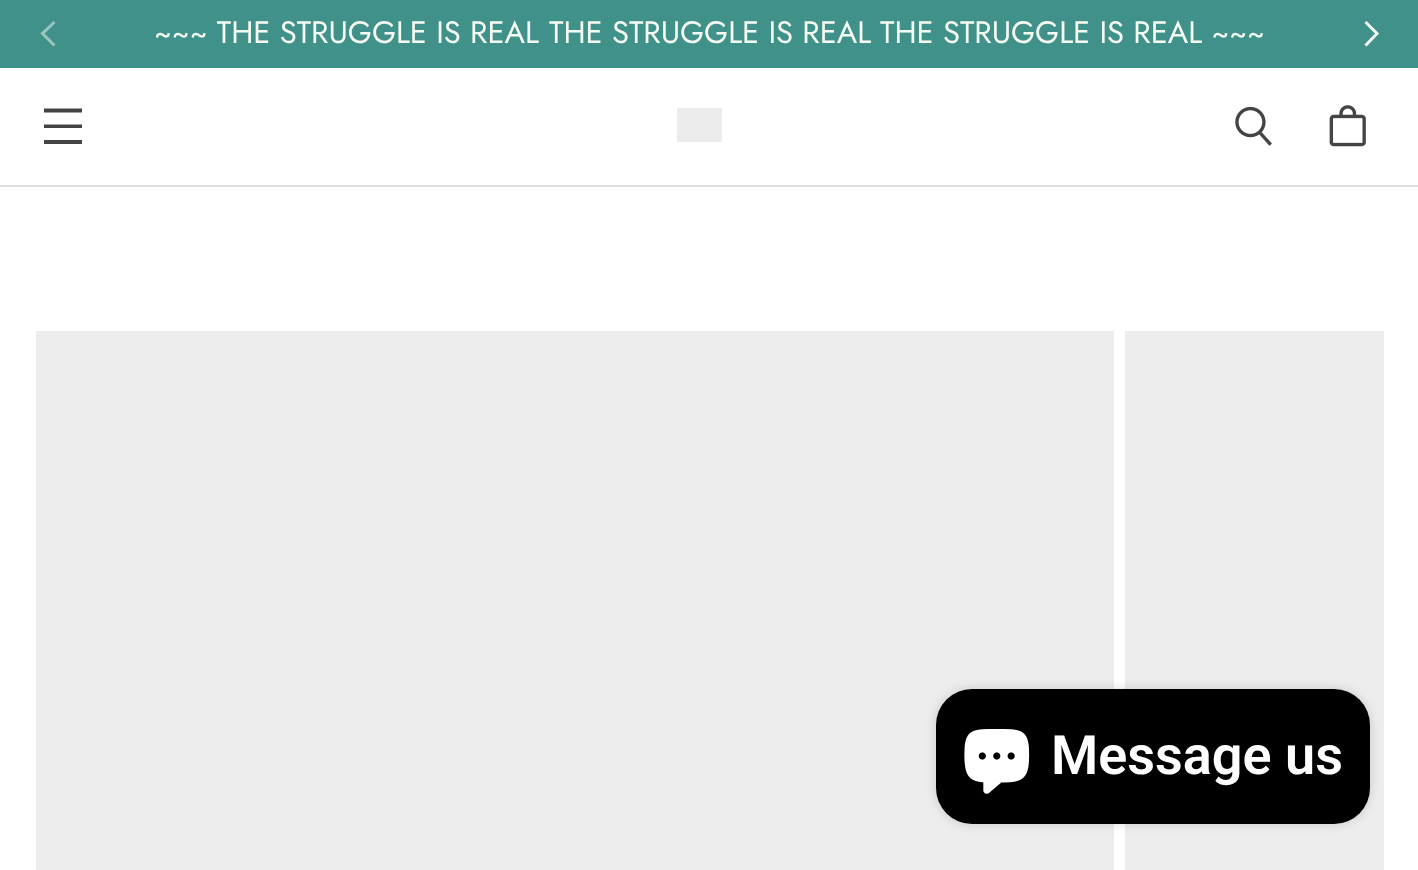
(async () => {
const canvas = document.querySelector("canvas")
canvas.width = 1418
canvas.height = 870
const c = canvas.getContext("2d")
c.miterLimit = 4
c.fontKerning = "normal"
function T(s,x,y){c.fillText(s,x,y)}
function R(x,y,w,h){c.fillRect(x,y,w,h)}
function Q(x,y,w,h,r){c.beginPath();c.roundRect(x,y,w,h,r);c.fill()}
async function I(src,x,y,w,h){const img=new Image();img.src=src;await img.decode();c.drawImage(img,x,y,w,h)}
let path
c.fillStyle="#fff"
R(0,0,1418,870)
c.fillStyle="#3f918a"
R(0,0,1418,68)
path = new Path2D("M54.5 22l-12 11.5l12 12")
c.strokeStyle="#9ac6be"
c.lineWidth=3
c.stroke(path)
path = new Path2D("M1365.5 45.5l11.5-12l-11.5-11.5")
c.strokeStyle="#f4fbf1"
c.stroke(path)
c.font="31px Jost"
c.fillStyle="#f4fbf1"
T("~~~ THE STRUGGLE IS REAL",154,43)
T("THE STRUGGLE IS REAL",549,43)
T("THE STRUGGLE IS REAL ~~~",880,43)
c.fillStyle="#dedede"
R(0,185,1418,2)
c.fillStyle="#444"
path = new Path2D("M82 112.5h-38v-4h38zm0 15.5h-38v-3.5h38zm-38 16h38v-4h-38z")
c.fill(path,"evenodd")
c.fillStyle="#ececec"
R(677,108,45,34)
await I("1.png",1235,106,37,40)
await I("2.png",1329,105,37,42)
c.fillStyle="#ededed"
R(36,331,1078,539)
R(1125,331,259,539)
c.fillStyle="#00000026"
c.filter="blur(5.5px)"
c.beginPath()
c.roundRect(936,689,434,135,36)
c.fill()
c.filter="none"
c.fillStyle="#000"
Q(936,689,434,135,36)
await I("3.png",964,729,66,65)
c.font="600 54px Roboto"
c.fillStyle="#fff"
T("Message us",1051,774)
})()
